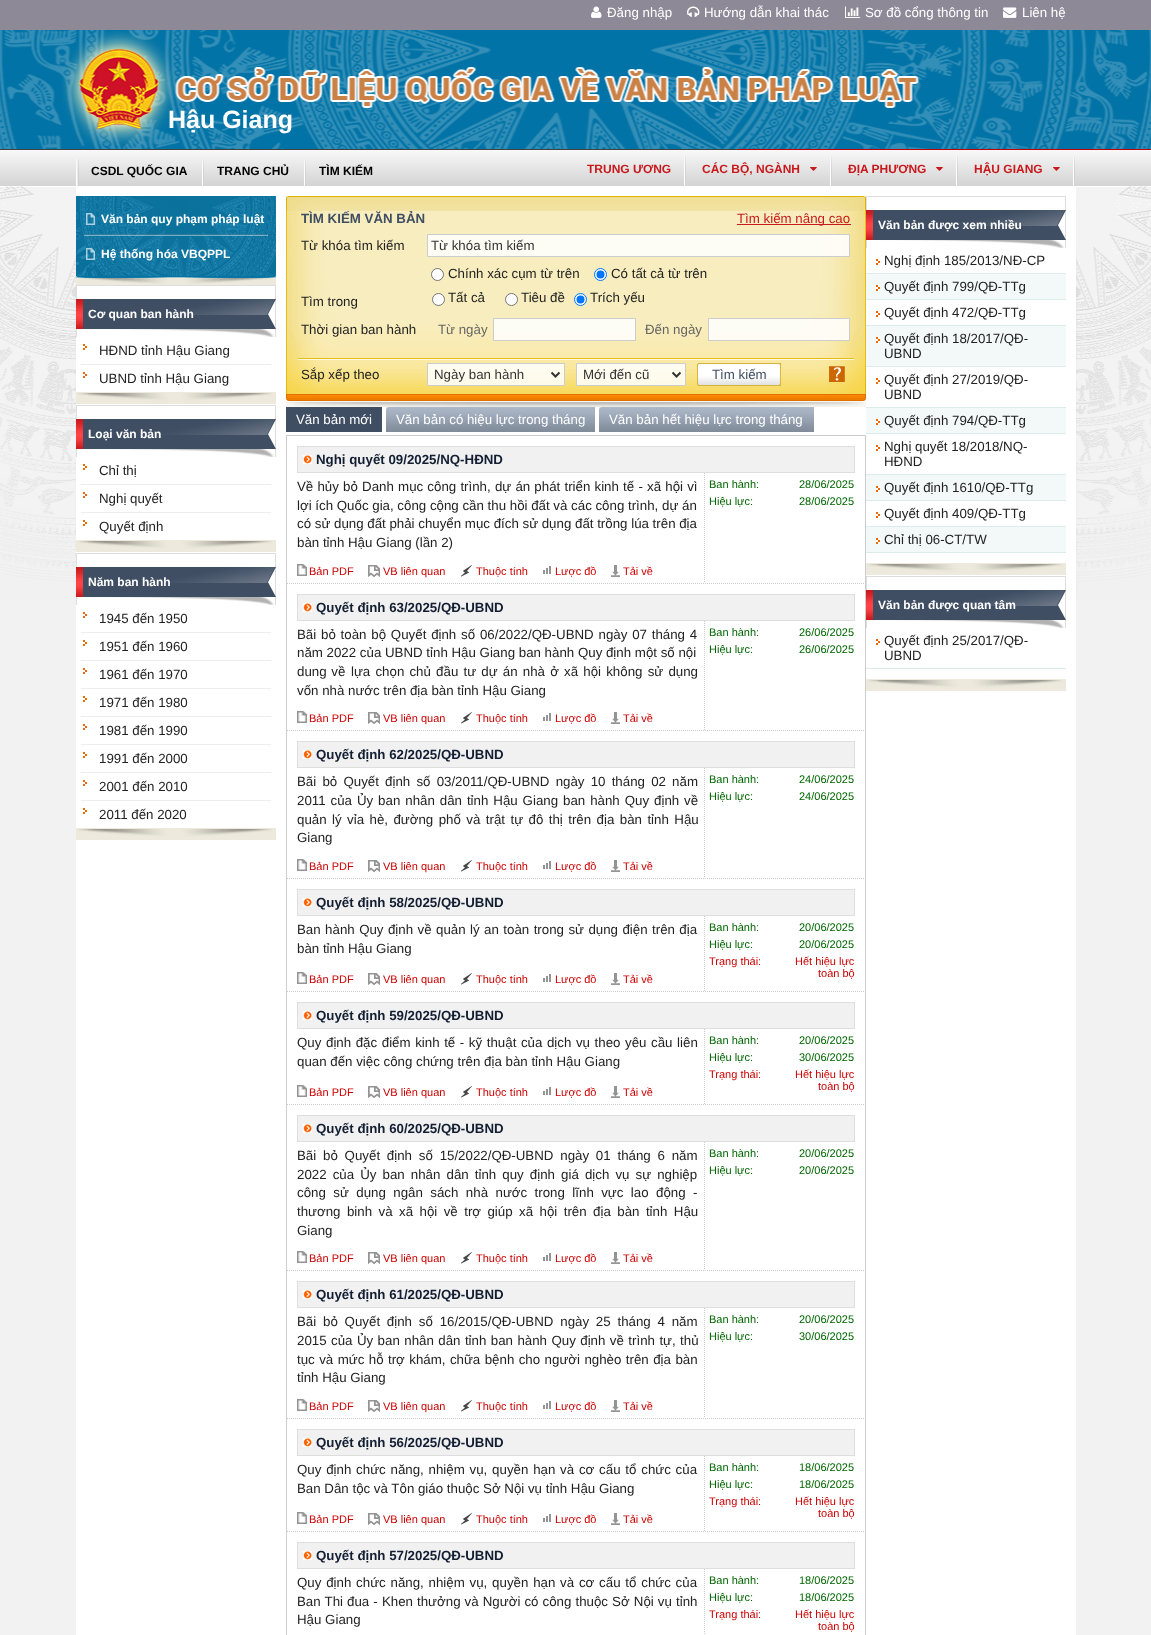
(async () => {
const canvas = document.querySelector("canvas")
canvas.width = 1151
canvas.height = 1635
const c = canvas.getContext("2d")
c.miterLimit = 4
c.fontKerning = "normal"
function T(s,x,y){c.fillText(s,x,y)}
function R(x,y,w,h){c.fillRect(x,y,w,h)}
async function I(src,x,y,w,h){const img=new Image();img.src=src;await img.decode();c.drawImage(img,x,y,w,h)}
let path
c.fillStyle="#f2f2f2"
R(0,0,1151,1635)
c.fillStyle="#8e8997"
R(0,0,1151,30)
await I("1.png",591,6,11,12)
c.font="13.3px Liberation Sans"
c.fillStyle="#fff"
T("Đăng nhập",607,17)
await I("2.png",687,6,13,11)
T("Hướng dẫn khai thác",704,17)
await I("3.png",845,6,16,12)
T("Sơ đồ cổng thông tin",865,17)
await I("4.png",1003,7,14,11)
T("Liên hệ",1022,17)
await I("5.png",0,30,1151,120)
await I("6.png",62,30,857,116)
c.font="bold 25px Liberation Sans"
T("Hậu Giang",168,128)
await I("7.png",0,150,1151,36)
await I("8.png",76,159,3,27)
c.font="bold 12px Liberation Sans"
c.fillStyle="#000"
T("CSDL QUỐC GIA",91,175)
await I("9.png",202,159,2,27)
T("TRANG CHỦ",217,175)
await I("9.png",304,159,2,27)
T("TÌM KIẾM",319,175)
await I("10.png",684,157,2,29)
c.fillStyle="#c81a1d"
T("TRUNG ƯƠNG",587,173)
await I("10.png",830,157,2,29)
T("CÁC BỘ, NGÀNH",702,173)
await I("11.png",810,167,7,4)
await I("10.png",956,157,2,29)
T("ĐỊA PHƯƠNG",848,173)
await I("11.png",936,167,7,4)
await I("10.png",1073,157,2,29)
T("HẬU GIANG",974,173)
await I("11.png",1053,167,7,4)
await I("12.png",0,186,1151,413)
c.fillStyle="#fff"
R(76,187,1000,1448)
c.fillStyle="#0173a6"
R(76,196,200,80)
await I("13.png",76,276,200,9)
await I("14.png",76,196,200,80)
await I("15.png",84,234,184,2)
await I("16.png",86,213,9,12)
c.fillStyle="#fff"
T("Văn bản quy phạm pháp luật",101,223)
await I("17.png",86,248,9,12)
T("Hệ thống hóa VBQPPL",101,258)
await I("18.png",76,285,200,52)
await I("19.png",166,286,110,51)
T("Cơ quan ban hành",88,318)
await I("20.png",83,344,4,6)
c.fillStyle="#eee"
R(81,364,190,1)
c.font="13.3px Liberation Sans"
c.fillStyle="#222"
T("HĐND tỉnh Hậu Giang",99,355)
await I("20.png",83,372,4,6)
T("UBND tỉnh Hậu Giang",99,383)
await I("21.png",76,392,200,12)
await I("22.png",88,393,186,4)
await I("18.png",76,405,200,52)
await I("19.png",166,406,110,51)
c.font="bold 12px Liberation Sans"
c.fillStyle="#fff"
T("Loại văn bản",88,438)
await I("20.png",83,464,4,6)
c.fillStyle="#eee"
R(81,484,190,1)
c.font="13.3px Liberation Sans"
c.fillStyle="#222"
T("Chỉ thị",99,475)
await I("20.png",83,492,4,6)
c.fillStyle="#eee"
R(81,512,190,1)
c.fillStyle="#222"
T("Nghị quyết",99,503)
await I("20.png",83,520,4,6)
T("Quyết định",99,531)
await I("21.png",76,540,200,12)
await I("22.png",88,541,186,4)
await I("18.png",76,553,200,52)
await I("19.png",166,554,110,51)
c.font="bold 12px Liberation Sans"
c.fillStyle="#fff"
T("Năm ban hành",88,586)
await I("20.png",83,612,4,6)
c.fillStyle="#eee"
R(81,632,190,1)
c.font="13.3px Liberation Sans"
c.fillStyle="#222"
T("1945 đến 1950",99,623)
await I("20.png",83,640,4,6)
c.fillStyle="#eee"
R(81,660,190,1)
c.fillStyle="#222"
T("1951 đến 1960",99,651)
await I("20.png",83,668,4,6)
c.fillStyle="#eee"
R(81,688,190,1)
c.fillStyle="#222"
T("1961 đến 1970",99,679)
await I("20.png",83,696,4,6)
c.fillStyle="#eee"
R(81,716,190,1)
c.fillStyle="#222"
T("1971 đến 1980",99,707)
await I("20.png",83,724,4,6)
c.fillStyle="#eee"
R(81,744,190,1)
c.fillStyle="#222"
T("1981 đến 1990",99,735)
await I("20.png",83,752,4,6)
c.fillStyle="#eee"
R(81,772,190,1)
c.fillStyle="#222"
T("1991 đến 2000",99,763)
await I("20.png",83,780,4,6)
c.fillStyle="#eee"
R(81,800,190,1)
c.fillStyle="#222"
T("2001 đến 2010",99,791)
await I("20.png",83,808,4,6)
T("2011 đến 2020",99,819)
await I("21.png",76,828,200,12)
await I("22.png",88,829,186,4)
await I("23.png",286,196,580,15)
await I("24.png",286,211,580,196)
c.font="bold 13.3px Liberation Sans"
c.fillStyle="#3f4e63"
T("TÌM KIẾM VĂN BẢN",301,223)
c.fillStyle="#c81a1d"
R(737,224,114,1)
c.font="13.3px Liberation Sans"
T("Tìm kiếm nâng cao",737,223)
c.fillStyle="#222"
T("Từ khóa tìm kiếm",301,250)
c.fillStyle="#ffffffd9"
c.beginPath()
c.rect(427.5,234.5,422,22)
c.fill()
c.strokeStyle="#ccc"
c.stroke()
c.fillStyle="#333"
T("Từ khóa tìm kiếm",431,250)
c.fillStyle="#fff"
c.beginPath()
c.arc(437.5,274.5,6,0,7)
c.fill()
c.strokeStyle="#767676"
c.stroke()
c.fillStyle="#222"
T("Chính xác cụm từ trên",448,278)
c.fillStyle="#fff"
c.beginPath()
c.arc(600.5,274.5,6,0,7)
c.fill()
c.strokeStyle="#0075ff"
c.stroke()
c.fillStyle="#0075ff"
c.beginPath()
c.arc(600.5,274.5,4,0,7)
c.fill()
c.fillStyle="#222"
T("Có tất cả từ trên",611,278)
T("Tìm trong",301,306)
c.fillStyle="#fff"
c.beginPath()
c.arc(438.5,299.5,6,0,7)
c.fill()
c.strokeStyle="#767676"
c.stroke()
c.fillStyle="#222"
T("Tất cả",448,302)
c.fillStyle="#fff"
c.beginPath()
c.arc(511.5,299.5,6,0,7)
c.fill()
c.stroke()
c.fillStyle="#222"
T("Tiêu đề",521,302)
c.fillStyle="#fff"
c.beginPath()
c.arc(580.5,299.5,6,0,7)
c.fill()
c.strokeStyle="#0075ff"
c.stroke()
c.fillStyle="#0075ff"
c.beginPath()
c.arc(580.5,299.5,4,0,7)
c.fill()
c.fillStyle="#222"
T("Trích yếu",590,302)
T("Thời gian ban hành",301,334)
c.fillStyle="#666"
T("Từ ngày",438,334)
c.fillStyle="#ffffffd9"
c.beginPath()
c.rect(493.5,318.5,142,22)
c.fill()
c.strokeStyle="#ccc"
c.stroke()
c.fillStyle="#666"
T("Đến ngày",645,334)
c.fillStyle="#ffffffd9"
c.beginPath()
c.rect(708.5,318.5,141,22)
c.fill()
c.stroke()
c.fillStyle="#222"
T("Sắp xếp theo",301,379)
c.fillStyle="#ffffffd9"
c.beginPath()
c.rect(427.5,363.5,137,22)
c.fill()
c.stroke()
path = new Path2D("M551.5 372.5l4 4l4-4")
c.strokeStyle="#333"
c.lineWidth=2
c.stroke(path)
c.fillStyle="#333"
T("Ngày ban hành",434,379)
c.fillStyle="#ffffffd9"
c.beginPath()
c.rect(576.5,363.5,109,22)
c.fill()
c.strokeStyle="#ccc"
c.lineWidth=1
c.stroke()
path = new Path2D("M672.5 372.5l4 4l4-4")
c.strokeStyle="#333"
c.lineWidth=2
c.stroke(path)
c.fillStyle="#333"
T("Mới đến cũ",583,379)
await I("25.png",697,363,84,23)
await I("26.png",712,364,69,21)
c.fillStyle="#3f4e63"
T("Tìm kiếm",712,379)
await I("27.png",829,366,16,16)
R(286,407,96,25)
c.fillStyle="#fff"
T("Văn bản mới",296,424)
await I("28.png",386,407,209,25)
T("Văn bản có hiệu lực trong tháng",396,424)
await I("29.png",599,407,215,25)
T("Văn bản hết hiệu lực trong tháng",609,424)
c.strokeStyle="#ccc"
c.lineWidth=1
c.strokeRect(286.5,435.5,579,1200)
path = new Path2D("M287 583.5h578")
c.setLineDash([1,1])
c.stroke(path)
c.fillStyle="#f1f1f1"
R(298,447,556,25)
await I("30.png",303,455,9,9)
c.strokeStyle="#dedede"
c.setLineDash([])
c.strokeRect(297.5,446.5,557,26)
c.font="bold 13.3px Liberation Sans"
c.fillStyle="#131e32"
T("Nghị quyết 09/2025/NQ-HĐND",316,464)
path = new Path2D("M704.5 473v110")
c.strokeStyle="#ccc"
c.setLineDash([1,1])
c.stroke(path)
c.wordSpacing="0.5px"
c.font="13.3px Liberation Sans"
c.fillStyle="#222"
T("Về hủy bỏ Danh mục công trình, dự án phát triển kinh tế - xã hội vì",297,491)
c.wordSpacing="0px"
T("lợi ích Quốc gia, công cộng cần thu hồi đất và các công trình, dự án",297,510)
T("có sử dụng đất phải chuyển mục đích sử dụng đất trồng lúa trên địa",297,528)
T("bàn tỉnh Hậu Giang (lần 2)",297,547)
await I("31.png",297,564,10,12)
c.font="11px Liberation Sans"
c.fillStyle="#c00"
T("Bản PDF",309,575)
await I("32.png",368,565,12,12)
T("VB liên quan",383,575)
await I("33.png",461,565,11,12)
T("Thuộc tính",476,575)
await I("34.png",543,566,8,8)
T("Lược đồ",555,575)
await I("35.png",611,565,9,12)
T("Tải về",623,575)
c.fillStyle="#060"
T("Ban hành:",709,488)
T("28/06/2025",799,488)
T("Hiệu lực:",709,505)
T("28/06/2025",799,505)
path = new Path2D("M287 730.5h578")
c.stroke(path)
c.fillStyle="#f1f1f1"
R(298,595,556,25)
await I("30.png",303,603,9,9)
c.strokeStyle="#dedede"
c.setLineDash([])
c.strokeRect(297.5,594.5,557,26)
c.font="bold 13.3px Liberation Sans"
c.fillStyle="#131e32"
T("Quyết định 63/2025/QĐ-UBND",316,612)
path = new Path2D("M704.5 621v109")
c.strokeStyle="#ccc"
c.setLineDash([1,1])
c.stroke(path)
c.wordSpacing="1.1px"
c.font="13.3px Liberation Sans"
c.fillStyle="#222"
T("Bãi bỏ toàn bộ Quyết định số 06/2022/QĐ-UBND ngày 07 tháng 4",297,639)
c.wordSpacing="0px"
T("năm 2022 của UBND tỉnh Hậu Giang ban hành Quy định một số nội",297,657)
c.wordSpacing="1px"
T("dung về",297,676)
c.wordSpacing="1.5px"
T("lựa chọn chủ đầu tư dự án nhà ở xã hội không sử dụng",351,676)
c.wordSpacing="0px"
T("vốn nhà nước trên địa bàn tỉnh Hậu Giang",297,695)
await I("31.png",297,711,10,12)
c.font="11px Liberation Sans"
c.fillStyle="#c00"
T("Bản PDF",309,722)
await I("32.png",368,712,12,12)
T("VB liên quan",383,722)
await I("33.png",461,712,11,12)
T("Thuộc tính",476,722)
await I("34.png",543,713,8,8)
T("Lược đồ",555,722)
await I("35.png",611,712,9,12)
T("Tải về",623,722)
c.fillStyle="#060"
T("Ban hành:",709,636)
T("26/06/2025",799,636)
T("Hiệu lực:",709,653)
T("26/06/2025",799,653)
path = new Path2D("M287 878.5h578")
c.stroke(path)
c.fillStyle="#f1f1f1"
R(298,742,556,25)
await I("30.png",303,750,9,9)
c.strokeStyle="#dedede"
c.setLineDash([])
c.strokeRect(297.5,741.5,557,26)
c.font="bold 13.3px Liberation Sans"
c.fillStyle="#131e32"
T("Quyết định 62/2025/QĐ-UBND",316,759)
path = new Path2D("M704.5 768v110")
c.strokeStyle="#ccc"
c.setLineDash([1,1])
c.stroke(path)
c.wordSpacing="2.5px"
c.font="13.3px Liberation Sans"
c.fillStyle="#222"
T("Bãi bỏ Quyết định số 03/2011/QĐ-UBND ngày 10 tháng 02 năm",297,786)
c.wordSpacing="1.25px"
T("2011 của Ủy ban nhân dân tỉnh Hậu Giang ban hành Quy định về",297,805)
c.wordSpacing="1.75px"
T("quản lý vỉa hè, đường phố và trật tự đô thị trên địa bàn tỉnh Hậu",297,824)
c.wordSpacing="0px"
T("Giang",297,842)
await I("31.png",297,859,10,12)
c.font="11px Liberation Sans"
c.fillStyle="#c00"
T("Bản PDF",309,870)
await I("32.png",368,860,12,12)
T("VB liên quan",383,870)
await I("33.png",461,860,11,12)
T("Thuộc tính",476,870)
await I("34.png",543,861,8,8)
T("Lược đồ",555,870)
await I("35.png",611,860,9,12)
T("Tải về",623,870)
c.fillStyle="#060"
T("Ban hành:",709,783)
T("24/06/2025",799,783)
T("Hiệu lực:",709,800)
T("24/06/2025",799,800)
path = new Path2D("M287 991.5h578")
c.stroke(path)
c.fillStyle="#f1f1f1"
R(298,890,556,25)
await I("30.png",303,898,9,9)
c.strokeStyle="#dedede"
c.setLineDash([])
c.strokeRect(297.5,889.5,557,26)
c.font="bold 13.3px Liberation Sans"
c.fillStyle="#131e32"
T("Quyết định 58/2025/QĐ-UBND",316,907)
path = new Path2D("M704.5 916v75")
c.strokeStyle="#ccc"
c.setLineDash([1,1])
c.stroke(path)
c.wordSpacing="0.75px"
c.font="13.3px Liberation Sans"
c.fillStyle="#222"
T("Ban hành Quy định về quản lý an toàn trong sử dụng điện trên địa",297,934)
c.wordSpacing="0px"
T("bàn tỉnh Hậu Giang",297,953)
await I("31.png",297,972,10,12)
c.font="11px Liberation Sans"
c.fillStyle="#c00"
T("Bản PDF",309,983)
await I("32.png",368,973,12,12)
T("VB liên quan",383,983)
await I("33.png",461,973,11,12)
T("Thuộc tính",476,983)
await I("34.png",543,974,8,8)
T("Lược đồ",555,983)
await I("35.png",611,973,9,12)
T("Tải về",623,983)
c.fillStyle="#060"
T("Ban hành:",709,931)
T("20/06/2025",799,931)
T("Hiệu lực:",709,948)
T("20/06/2025",799,948)
c.fillStyle="#c00"
T("Trạng thái:",709,965)
T("Hết hiệu lực",795,965)
T("toàn bộ",818,977)
path = new Path2D("M287 1104.5h578")
c.stroke(path)
c.fillStyle="#f1f1f1"
R(298,1003,556,25)
await I("30.png",303,1011,9,9)
c.strokeStyle="#dedede"
c.setLineDash([])
c.strokeRect(297.5,1002.5,557,26)
c.font="bold 13.3px Liberation Sans"
c.fillStyle="#131e32"
T("Quyết định 59/2025/QĐ-UBND",316,1020)
path = new Path2D("M704.5 1029v75")
c.strokeStyle="#ccc"
c.setLineDash([1,1])
c.stroke(path)
c.wordSpacing="0.9px"
c.font="13.3px Liberation Sans"
c.fillStyle="#222"
T("Quy định đặc điểm kinh tế - kỹ thuật của dịch vụ theo yêu cầu liên",297,1047)
c.wordSpacing="0px"
T("quan đến việc công chứng trên địa bàn tỉnh Hậu Giang",297,1066)
await I("31.png",297,1085,10,12)
c.font="11px Liberation Sans"
c.fillStyle="#c00"
T("Bản PDF",309,1096)
await I("32.png",368,1086,12,12)
T("VB liên quan",383,1096)
await I("33.png",461,1086,11,12)
T("Thuộc tính",476,1096)
await I("34.png",543,1087,8,8)
T("Lược đồ",555,1096)
await I("35.png",611,1086,9,12)
T("Tải về",623,1096)
c.fillStyle="#060"
T("Ban hành:",709,1044)
T("20/06/2025",799,1044)
T("Hiệu lực:",709,1061)
T("30/06/2025",799,1061)
c.fillStyle="#c00"
T("Trạng thái:",709,1078)
T("Hết hiệu lực",795,1078)
T("toàn bộ",818,1090)
path = new Path2D("M287 1270.5h578")
c.stroke(path)
c.fillStyle="#f1f1f1"
R(298,1116,556,25)
await I("30.png",303,1124,9,9)
c.strokeStyle="#dedede"
c.setLineDash([])
c.strokeRect(297.5,1115.5,557,26)
c.font="bold 13.3px Liberation Sans"
c.fillStyle="#131e32"
T("Quyết định 60/2025/QĐ-UBND",316,1133)
path = new Path2D("M704.5 1142v128")
c.strokeStyle="#ccc"
c.setLineDash([1,1])
c.stroke(path)
c.wordSpacing="3.1px"
c.font="13.3px Liberation Sans"
c.fillStyle="#222"
T("Bãi bỏ Quyết định số 15/2022/QĐ-UBND ngày 01 tháng 6 năm",297,1160)
c.wordSpacing="2.4px"
T("2022 của Ủy ban nhân dân tỉnh quy định giá dịch vụ sự nghiệp",297,1179)
c.wordSpacing="3.75px"
T("công sử dụng ngân sách nhà nước trong lĩnh vực lao động -",297,1197)
c.wordSpacing="2.75px"
T("thương binh và xã hội về trợ giúp xã hội trên địa bàn tỉnh Hậu",297,1216)
c.wordSpacing="0px"
T("Giang",297,1235)
await I("31.png",297,1251,10,12)
c.font="11px Liberation Sans"
c.fillStyle="#c00"
T("Bản PDF",309,1262)
await I("32.png",368,1252,12,12)
T("VB liên quan",383,1262)
await I("33.png",461,1252,11,12)
T("Thuộc tính",476,1262)
await I("34.png",543,1253,8,8)
T("Lược đồ",555,1262)
await I("35.png",611,1252,9,12)
T("Tải về",623,1262)
c.fillStyle="#060"
T("Ban hành:",709,1157)
T("20/06/2025",799,1157)
T("Hiệu lực:",709,1174)
T("20/06/2025",799,1174)
path = new Path2D("M287 1418.5h578")
c.stroke(path)
c.fillStyle="#f1f1f1"
R(298,1282,556,25)
await I("30.png",303,1290,9,9)
c.strokeStyle="#dedede"
c.setLineDash([])
c.strokeRect(297.5,1281.5,557,26)
c.font="bold 13.3px Liberation Sans"
c.fillStyle="#131e32"
T("Quyết định 61/2025/QĐ-UBND",316,1299)
path = new Path2D("M704.5 1308v110")
c.strokeStyle="#ccc"
c.setLineDash([1,1])
c.stroke(path)
c.wordSpacing="3.1px"
c.font="13.3px Liberation Sans"
c.fillStyle="#222"
T("Bãi bỏ Quyết định số 16/2015/QĐ-UBND ngày 25 tháng 4 năm",297,1326)
c.wordSpacing="0.75px"
T("2015 của Ủy ban nhân dân tỉnh ban hành Quy định về trình tự, thủ",297,1345)
T("tục và mức hỗ trợ khám, chữa bệnh cho người nghèo trên địa bàn",297,1364)
c.wordSpacing="0px"
T("tỉnh Hậu Giang",297,1382)
await I("31.png",297,1399,10,12)
c.font="11px Liberation Sans"
c.fillStyle="#c00"
T("Bản PDF",309,1410)
await I("32.png",368,1400,12,12)
T("VB liên quan",383,1410)
await I("33.png",461,1400,11,12)
T("Thuộc tính",476,1410)
await I("34.png",543,1401,8,8)
T("Lược đồ",555,1410)
await I("35.png",611,1400,9,12)
T("Tải về",623,1410)
c.fillStyle="#060"
T("Ban hành:",709,1323)
T("20/06/2025",799,1323)
T("Hiệu lực:",709,1340)
T("30/06/2025",799,1340)
path = new Path2D("M287 1531.5h578")
c.stroke(path)
c.fillStyle="#f1f1f1"
R(298,1430,556,25)
await I("30.png",303,1438,9,9)
c.strokeStyle="#dedede"
c.setLineDash([])
c.strokeRect(297.5,1429.5,557,26)
c.font="bold 13.3px Liberation Sans"
c.fillStyle="#131e32"
T("Quyết định 56/2025/QĐ-UBND",316,1447)
path = new Path2D("M704.5 1456v75")
c.strokeStyle="#ccc"
c.setLineDash([1,1])
c.stroke(path)
c.wordSpacing="1.1px"
c.font="13.3px Liberation Sans"
c.fillStyle="#222"
T("Quy định chức năng, nhiệm vụ, quyền hạn và cơ cấu tổ chức của",297,1474)
c.wordSpacing="0px"
T("Ban Dân tộc và Tôn giáo thuộc Sở Nội vụ tỉnh Hậu Giang",297,1493)
await I("31.png",297,1512,10,12)
c.font="11px Liberation Sans"
c.fillStyle="#c00"
T("Bản PDF",309,1523)
await I("32.png",368,1513,12,12)
T("VB liên quan",383,1523)
await I("33.png",461,1513,11,12)
T("Thuộc tính",476,1523)
await I("34.png",543,1514,8,8)
T("Lược đồ",555,1523)
await I("35.png",611,1513,9,12)
T("Tải về",623,1523)
c.fillStyle="#060"
T("Ban hành:",709,1471)
T("18/06/2025",799,1471)
T("Hiệu lực:",709,1488)
T("18/06/2025",799,1488)
c.fillStyle="#c00"
T("Trạng thái:",709,1505)
T("Hết hiệu lực",795,1505)
T("toàn bộ",818,1517)
c.fillStyle="#f1f1f1"
R(298,1543,556,25)
await I("30.png",303,1551,9,9)
c.strokeStyle="#dedede"
c.setLineDash([])
c.strokeRect(297.5,1542.5,557,26)
c.font="bold 13.3px Liberation Sans"
c.fillStyle="#131e32"
T("Quyết định 57/2025/QĐ-UBND",316,1560)
path = new Path2D("M704.5 1569v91")
c.strokeStyle="#ccc"
c.setLineDash([1,1])
c.stroke(path)
c.wordSpacing="1.1px"
c.font="13.3px Liberation Sans"
c.fillStyle="#222"
T("Quy định chức năng, nhiệm vụ, quyền hạn và cơ cấu tổ chức của",297,1587)
c.wordSpacing="0.4px"
T("Ban Thi đua - Khen thưởng và Người có công thuộc Sở Nội vụ tỉnh",297,1606)
c.wordSpacing="0px"
T("Hậu Giang",297,1624)
c.font="11px Liberation Sans"
c.fillStyle="#060"
T("Ban hành:",709,1584)
T("18/06/2025",799,1584)
T("Hiệu lực:",709,1601)
T("18/06/2025",799,1601)
c.fillStyle="#c00"
T("Trạng thái:",709,1618)
T("Hết hiệu lực",795,1618)
T("toàn bộ",818,1630)
await I("18.png",866,196,200,52)
await I("19.png",956,197,110,51)
c.font="bold 12px Liberation Sans"
c.fillStyle="#fff"
T("Văn bản được xem nhiều",878,229)
await I("20.png",876,259,4,6)
c.fillStyle="#dceceb"
R(866,273,200,1)
c.font="13.3px Liberation Sans"
c.fillStyle="#222"
T("Nghị định 185/2013/NĐ-CP",884,265)
c.fillStyle="#f3f9f9"
R(866,274,200,25)
await I("20.png",876,285,4,6)
c.fillStyle="#dceceb"
R(866,299,200,1)
c.fillStyle="#222"
T("Quyết định 799/QĐ-TTg",884,291)
await I("20.png",876,311,4,6)
c.fillStyle="#dceceb"
R(866,325,200,1)
c.fillStyle="#222"
T("Quyết định 472/QĐ-TTg",884,317)
c.fillStyle="#f3f9f9"
R(866,326,200,40)
await I("20.png",876,337,4,6)
c.fillStyle="#dceceb"
R(866,366,200,1)
c.fillStyle="#222"
T("Quyết định 18/2017/QĐ-",884,343)
T("UBND",884,358)
await I("20.png",876,378,4,6)
c.fillStyle="#dceceb"
R(866,407,200,1)
c.fillStyle="#222"
T("Quyết định 27/2019/QĐ-",884,384)
T("UBND",884,399)
c.fillStyle="#f3f9f9"
R(866,408,200,25)
await I("20.png",876,419,4,6)
c.fillStyle="#dceceb"
R(866,433,200,1)
c.fillStyle="#222"
T("Quyết định 794/QĐ-TTg",884,425)
await I("20.png",876,445,4,6)
c.fillStyle="#dceceb"
R(866,474,200,1)
c.fillStyle="#222"
T("Nghị quyết 18/2018/NQ-",884,451)
T("HĐND",884,466)
c.fillStyle="#f3f9f9"
R(866,475,200,25)
await I("20.png",876,486,4,6)
c.fillStyle="#dceceb"
R(866,500,200,1)
c.fillStyle="#222"
T("Quyết định 1610/QĐ-TTg",884,492)
await I("20.png",876,512,4,6)
c.fillStyle="#dceceb"
R(866,526,200,1)
c.fillStyle="#222"
T("Quyết định 409/QĐ-TTg",884,518)
c.fillStyle="#f3f9f9"
R(866,527,200,25)
await I("20.png",876,538,4,6)
c.fillStyle="#dceceb"
R(866,552,200,1)
c.fillStyle="#222"
T("Chỉ thị 06-CT/TW",884,544)
await I("21.png",866,563,200,12)
await I("22.png",878,564,186,4)
await I("18.png",866,576,200,52)
await I("19.png",956,577,110,51)
c.font="bold 12px Liberation Sans"
c.fillStyle="#fff"
T("Văn bản được quan tâm",878,609)
await I("20.png",876,639,4,6)
c.fillStyle="#dceceb"
R(866,668,200,1)
c.font="13.3px Liberation Sans"
c.fillStyle="#222"
T("Quyết định 25/2017/QĐ-",884,645)
T("UBND",884,660)
await I("21.png",866,679,200,12)
await I("22.png",878,680,186,4)
})()
